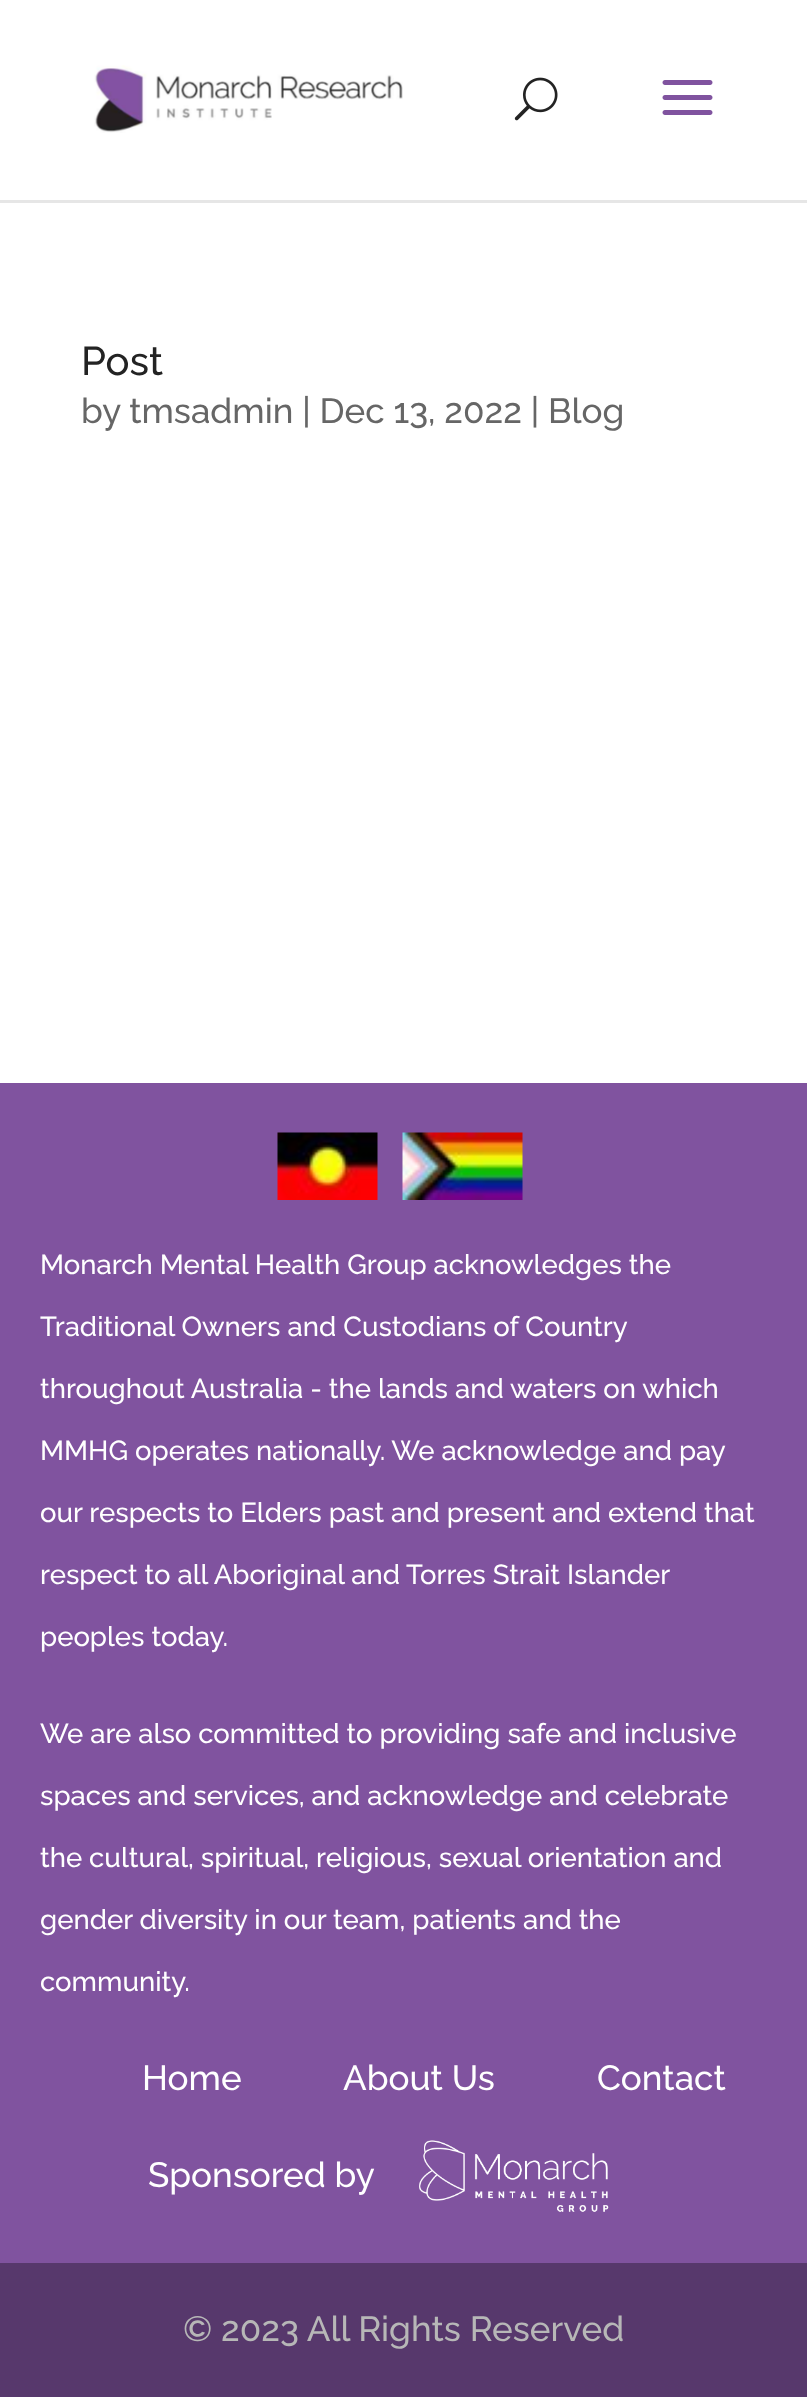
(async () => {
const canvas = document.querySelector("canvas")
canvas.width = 807
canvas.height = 2397
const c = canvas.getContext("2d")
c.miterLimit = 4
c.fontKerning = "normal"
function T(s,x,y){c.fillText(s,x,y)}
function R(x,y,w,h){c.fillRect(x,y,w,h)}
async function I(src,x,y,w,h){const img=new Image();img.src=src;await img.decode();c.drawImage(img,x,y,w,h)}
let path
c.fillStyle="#fff"
R(0,0,807,2397)
c.fillStyle="#e6e6e6"
path = new Path2D("M0 200v3h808v-200v197z")
c.fill(path)
await I("1.png",94,65,309,68)
await I("2.png",514,77,44,44)
await I("3.png",662,80,51,35)
c.font="500 40px Raleway"
c.fillStyle="#232323"
T("Post",81,375)
c.font="500 35px Raleway"
c.fillStyle="#666"
T("by tmsadmin | Dec 13, 2022 | Blog",81,423)
c.fillStyle="#80539f"
R(0,1083,807,1180)
await I("4.png",277,1132,101,68)
await I("5.png",402,1132,121,68)
c.font="500 27.5px Raleway"
c.fillStyle="#fff"
T("Monarch Mental Health Group acknowledges the",40,1274)
T("Traditional Owners and Custodians of Country",40,1336)
T("throughout Australia - the lands and waters on which",40,1398)
T("MMHG operates nationally. We acknowledge and pay",40,1460)
T("our respects to Elders past and present and extend that",40,1522)
T("respect to all Aboriginal and Torres Strait Islander",40,1584)
T("peoples today.",40,1646)
T("We are also committed to providing safe and inclusive",40,1743)
T("spaces and services, and acknowledge and celebrate",40,1805)
T("the cultural, spiritual, religious, sexual orientation and",40,1867)
T("gender diversity in our team, patients and the",40,1929)
T("community.",40,1991)
c.font="500 35px Raleway"
T("Home",142,2090)
T("About Us",343,2090)
T("Contact",597,2090)
T("Sponsored by",148,2187)
await I("6.png",419,2140,190,72)
c.fillStyle="#57386c"
R(0,2263,807,134)
c.fillStyle="#b7b7b7"
T("© 2023 All Rights Reserved",183,2341)
})()
